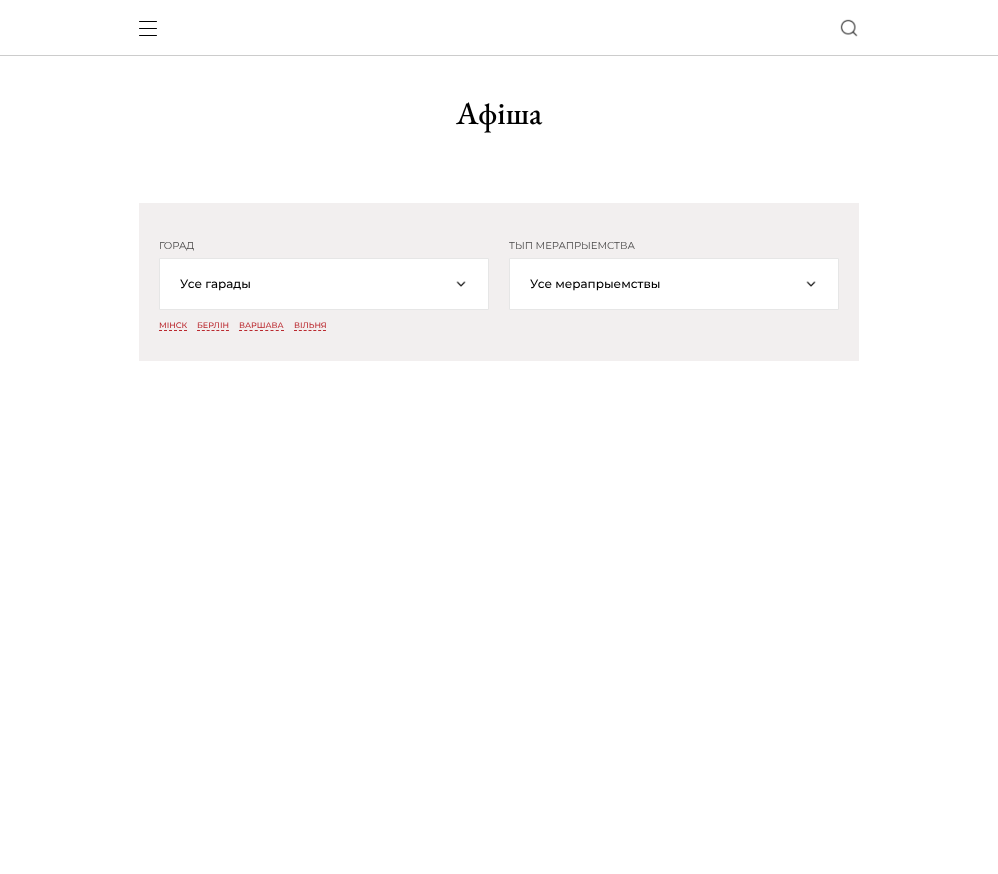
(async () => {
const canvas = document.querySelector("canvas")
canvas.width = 998
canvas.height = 874
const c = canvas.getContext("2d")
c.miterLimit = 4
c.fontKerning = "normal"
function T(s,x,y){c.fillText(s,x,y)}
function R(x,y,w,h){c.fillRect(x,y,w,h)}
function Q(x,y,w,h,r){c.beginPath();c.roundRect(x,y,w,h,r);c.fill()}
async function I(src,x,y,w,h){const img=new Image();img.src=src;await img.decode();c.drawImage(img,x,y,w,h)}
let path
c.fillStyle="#fff"
R(0,0,998,874)
c.fillStyle="#ccc"
R(0,55,998,1)
c.fillStyle="#000"
Q(139,21,18,1,.5)
Q(139,28,18,1,.5)
Q(139,35,18,1,.5)
await I("1.png",840,19,18,18)
c.font="500 32px EB Garamond"
T("Афіша",456,124)
c.fillStyle="#f2efef"
R(139,203,720,158)
c.font="10px Montserrat"
c.fillStyle="#494848"
T("ГОРАД",159,249)
c.fillStyle="#fff"
c.beginPath()
c.rect(159.5,258.5,329,51)
c.fill()
c.strokeStyle="#e6e6e6"
c.stroke()
c.font="500 12px Montserrat"
c.fillStyle="#000"
T("Усе гарады",180,288)
await I("2.png",456,281,10,6)
path = new Path2D("M159 330.5h28")
c.strokeStyle="#ba282e"
c.setLineDash([3,2])
c.stroke(path)
c.font="500 8px Montserrat"
c.fillStyle="#ba282e"
T("МІНСК",159,328)
path = new Path2D("M197 330.5h32")
c.setLineDash([3,1.83])
c.stroke(path)
T("БЕРЛІН",197,328)
path = new Path2D("M239 330.5h45")
c.setLineDash([3,2.25])
c.stroke(path)
T("ВАРШАВА",239,328)
path = new Path2D("M294 330.5h32")
c.setLineDash([3,1.83])
c.stroke(path)
T("ВІЛЬНЯ",294,328)
c.font="10px Montserrat"
c.fillStyle="#494848"
T("ТЫП МЕРАПРЫЕМСТВА",509,249)
c.fillStyle="#fff"
c.beginPath()
c.rect(509.5,258.5,329,51)
c.fill()
c.strokeStyle="#e6e6e6"
c.setLineDash([])
c.stroke()
c.font="500 12px Montserrat"
c.fillStyle="#000"
T("Усе мерапрыемствы",530,288)
await I("2.png",806,281,10,6)
})()
